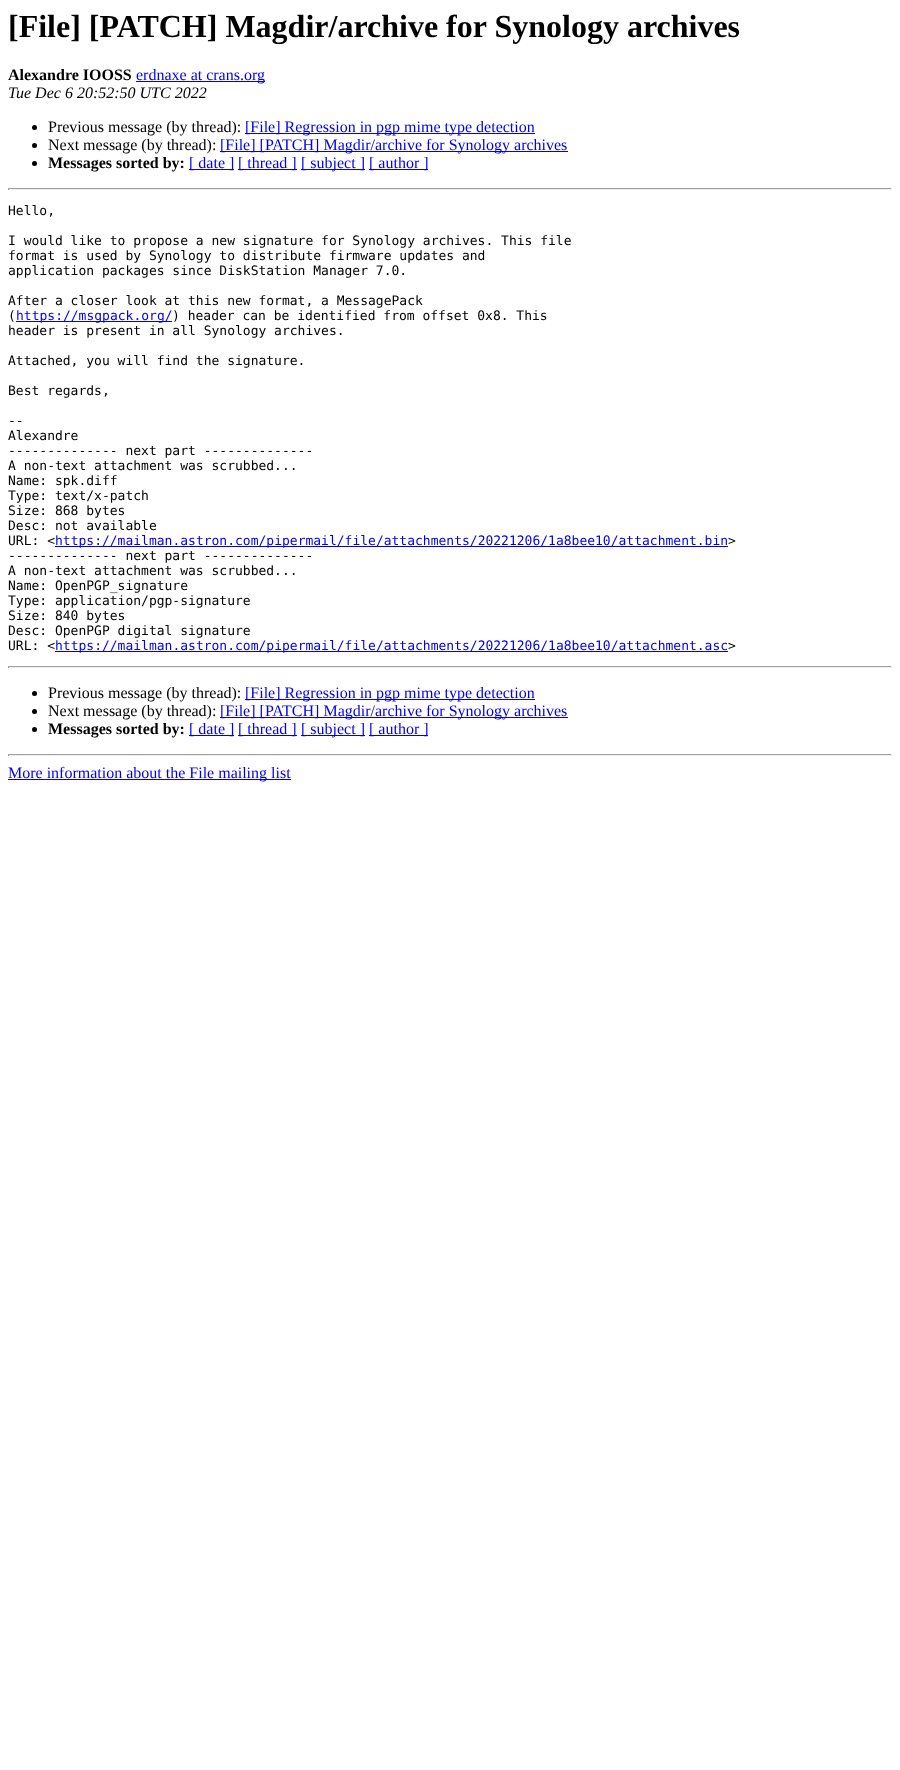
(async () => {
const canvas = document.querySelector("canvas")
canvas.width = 900
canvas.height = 1770
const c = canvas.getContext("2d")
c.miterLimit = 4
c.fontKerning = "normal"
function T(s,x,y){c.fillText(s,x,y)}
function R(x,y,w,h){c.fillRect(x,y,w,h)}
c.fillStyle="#fff"
R(0,0,900,1770)
c.font="bold 32px Liberation Serif"
c.fillStyle="#000"
T("[File] [PATCH] Magdir/archive for Synology archives",8,37)
c.font="bold 16px Liberation Serif"
T("Alexandre IOOSS",8,80)
c.fillStyle="#00e"
R(136,81,129,1)
c.font="16px Liberation Serif"
T("erdnaxe at crans.org",136,80)
c.font="italic 16px Liberation Serif"
c.fillStyle="#000"
T("Tue Dec 6 20:52:50 UTC 2022",8,98)
c.beginPath()
c.arc(34.5,127.5,2.5,0,7)
c.fill()
c.font="16px Liberation Serif"
T("Previous message (by thread):",48,132)
c.fillStyle="#00e"
R(245,133,290,1)
T("[File] Regression in pgp mime type detection",245,132)
c.fillStyle="#000"
c.beginPath()
c.arc(34.5,145.5,2.5,0,7)
c.fill()
T("Next message (by thread):",48,150)
c.fillStyle="#00e"
R(220,151,348,1)
T("[File] [PATCH] Magdir/archive for Synology archives",220,150)
c.fillStyle="#000"
c.beginPath()
c.arc(34.5,163.5,2.5,0,7)
c.fill()
c.font="bold 16px Liberation Serif"
T("Messages sorted by:",48,168)
c.fillStyle="#00e"
R(189,169,45,1)
c.font="16px Liberation Serif"
T("[ date ]",189,168)
R(238,169,59,1)
T("[ thread ]",238,168)
R(301,169,64,1)
T("[ subject ]",301,168)
R(369,169,59,1)
T("[ author ]",369,168)
c.fillStyle="#9f9f9f"
R(8,188,884,1)
c.fillStyle="#eee"
R(891,188,1,2)
R(8,189,884,1)
c.fillStyle="#9f9f9f"
R(8,188,1,2)
c.font="13px DejaVu Sans Mono"
c.fillStyle="#000"
T("Hello,",8,215)
T("I would like to propose a new signature for Synology archives. This file",8,245)
T("format is used by Synology to distribute firmware updates and",8,260)
T("application packages since DiskStation Manager 7.0.",8,275)
T("After a closer look at this new format, a MessagePack",8,305)
T("(",8,320)
c.fillStyle="#00e"
R(16,321,156,1)
T("https://msgpack.org/",16,320)
c.fillStyle="#000"
T(") header can be identified from offset 0x8. This",172,320)
T("header is present in all Synology archives.",8,335)
T("Attached, you will find the signature.",8,365)
T("Best regards,",8,395)
T("--",8,425)
T("Alexandre",8,440)
T("-------------- next part --------------",8,455)
T("A non-text attachment was scrubbed...",8,470)
T("Name: spk.diff",8,485)
T("Type: text/x-patch",8,500)
T("Size: 868 bytes",8,515)
T("Desc: not available",8,530)
T("URL: <",8,545)
c.fillStyle="#00e"
R(55,546,673,1)
T("https://mailman.astron.com/pipermail/file/attachments/20221206/1a8bee10/attachment.bin",55,545)
c.fillStyle="#000"
T(">",728,545)
T("-------------- next part --------------",8,560)
T("A non-text attachment was scrubbed...",8,575)
T("Name: OpenPGP_signature",8,590)
T("Type: application/pgp-signature",8,605)
T("Size: 840 bytes",8,620)
T("Desc: OpenPGP digital signature",8,635)
T("URL: <",8,650)
c.fillStyle="#00e"
R(55,651,673,1)
T("https://mailman.astron.com/pipermail/file/attachments/20221206/1a8bee10/attachment.asc",55,650)
c.fillStyle="#000"
T(">",728,650)
c.fillStyle="#9f9f9f"
R(8,666,884,1)
c.fillStyle="#eee"
R(891,666,1,2)
R(8,667,884,1)
c.fillStyle="#9f9f9f"
R(8,666,1,2)
c.fillStyle="#000"
c.beginPath()
c.arc(34.5,693.5,2.5,0,7)
c.fill()
c.font="16px Liberation Serif"
T("Previous message (by thread):",48,698)
c.fillStyle="#00e"
R(245,699,290,1)
T("[File] Regression in pgp mime type detection",245,698)
c.fillStyle="#000"
c.beginPath()
c.arc(34.5,711.5,2.5,0,7)
c.fill()
T("Next message (by thread):",48,716)
c.fillStyle="#00e"
R(220,717,348,1)
T("[File] [PATCH] Magdir/archive for Synology archives",220,716)
c.fillStyle="#000"
c.beginPath()
c.arc(34.5,729.5,2.5,0,7)
c.fill()
c.font="bold 16px Liberation Serif"
T("Messages sorted by:",48,734)
c.fillStyle="#00e"
R(189,735,45,1)
c.font="16px Liberation Serif"
T("[ date ]",189,734)
R(238,735,59,1)
T("[ thread ]",238,734)
R(301,735,64,1)
T("[ subject ]",301,734)
R(369,735,59,1)
T("[ author ]",369,734)
c.fillStyle="#9f9f9f"
R(8,754,884,1)
c.fillStyle="#eee"
R(891,754,1,2)
R(8,755,884,1)
c.fillStyle="#9f9f9f"
R(8,754,1,2)
c.fillStyle="#00e"
R(8,779,283,1)
T("More information about the File mailing list",8,778)
})()
